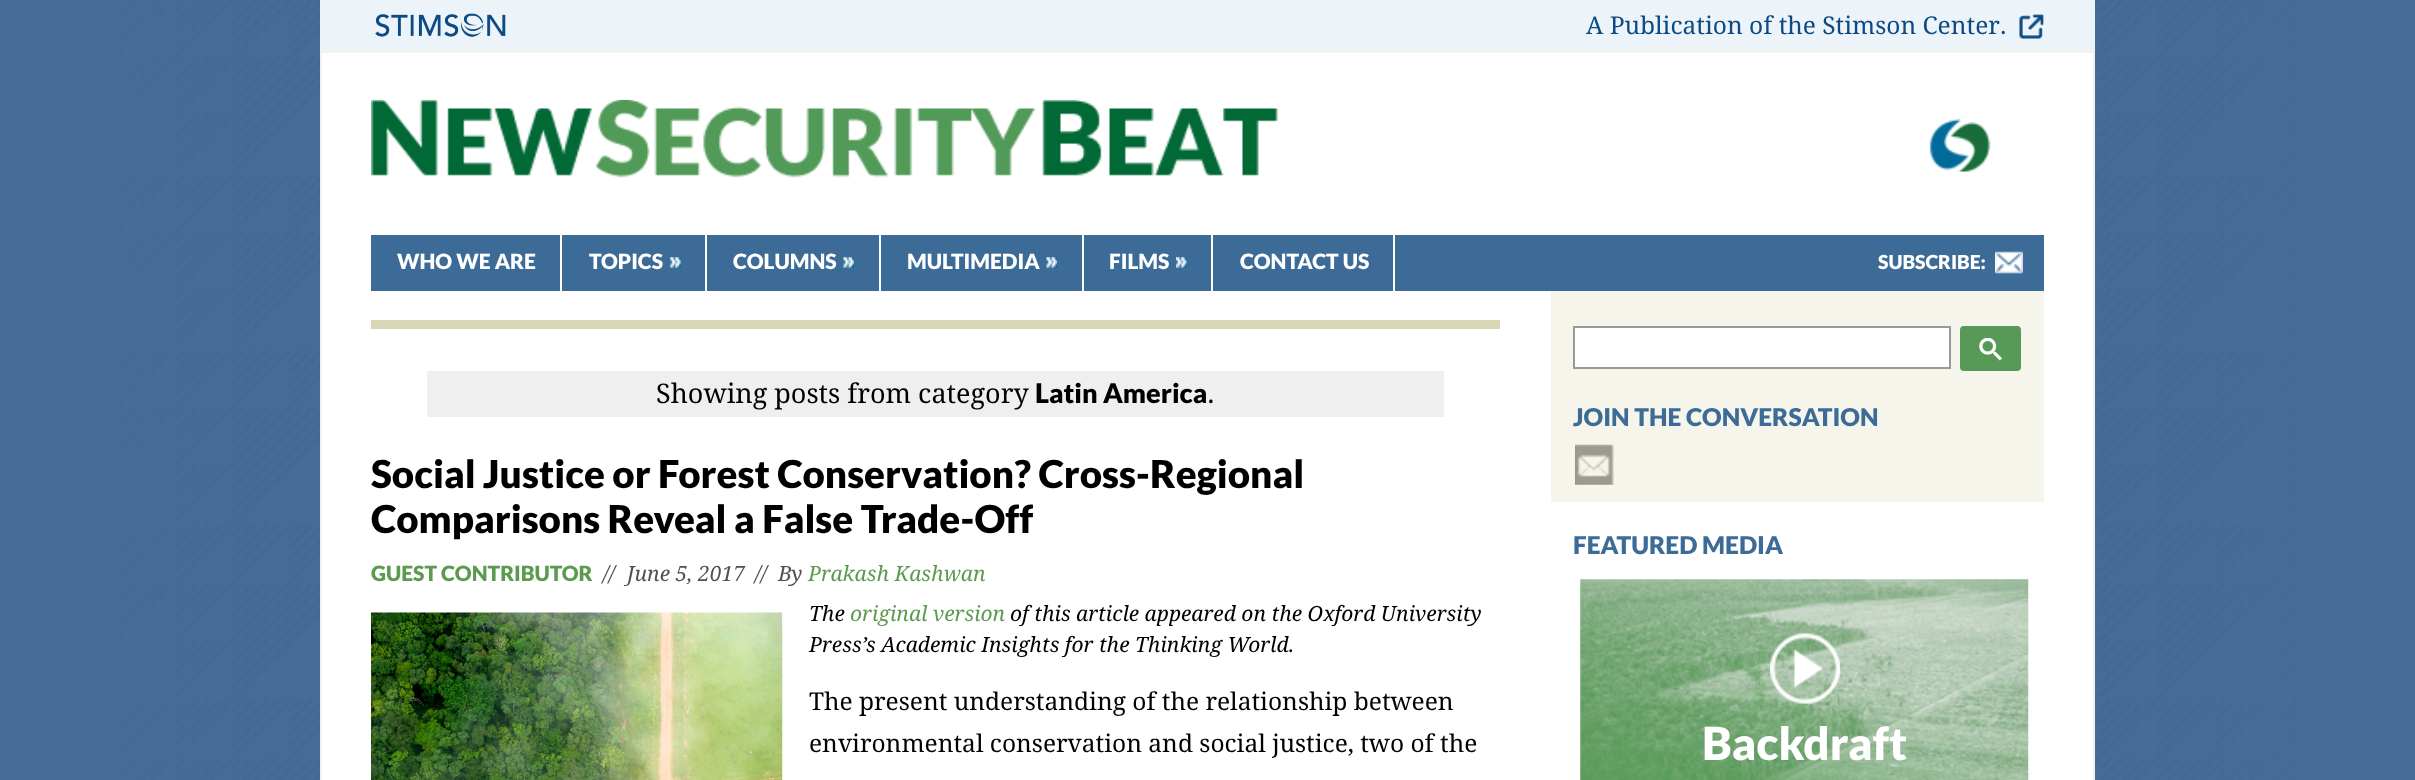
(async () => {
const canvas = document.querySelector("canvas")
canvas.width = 2415
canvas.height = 780
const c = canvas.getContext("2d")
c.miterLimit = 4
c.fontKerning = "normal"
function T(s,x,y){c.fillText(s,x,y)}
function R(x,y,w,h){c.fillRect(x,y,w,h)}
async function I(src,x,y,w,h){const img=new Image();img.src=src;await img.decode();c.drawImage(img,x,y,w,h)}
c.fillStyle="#fff"
R(0,0,2415,780)
await I("1.png",0,0,2415,780)
c.fillStyle="#ecf3f9"
R(320,0,1775,51)
await I("2.png",375,13,131,24)
c.font="24.5px Droid Serif"
c.fillStyle="#0b4a82"
T("A Publication of the Stimson Center.",1586,34)
await I("3.png",2019,14,25,25)
c.fillStyle="#fff"
c.beginPath()
c.rect(321,52,1773,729)
c.fill()
c.strokeStyle="#f3f3ed"
c.lineWidth=2
c.stroke()
await I("4.png",371,99,907,79)
await I("5.png",1929,118,62,54)
c.fillStyle="#3c6b97"
R(371,235,1673,56)
c.fillStyle="#fff"
R(560,235,2,56)
c.font="900 21px Lato"
T("WHO WE ARE",397,269)
R(705,235,2,56)
await I("6.png",670,257,11,11)
T("TOPICS",589,269)
R(879,235,2,56)
await I("7.png",843,257,11,11)
T("COLUMNS",733,269)
R(1082,235,2,56)
await I("8.png",1046,257,11,11)
T("MULTIMEDIA",907,269)
R(1211,235,2,56)
await I("9.png",1176,257,11,11)
T("FILMS",1109,269)
R(1393,235,2,56)
T("CONTACT US",1240,269)
c.font="900 19.25px Lato"
T("SUBSCRIBE:",1878,269)
await I("10.png",1995,251,28,23)
c.fillStyle="#d9d7b5"
R(371,320,1129,9)
c.fillStyle="#efefef"
R(427,371,1017,46)
c.font="27px Droid Serif"
c.fillStyle="#000"
T("Showing posts from category",656,403)
c.font="900 27px Lato"
T("Latin America",1035,403)
c.font="27px Droid Serif"
T(".",1207,403)
c.font="900 38.5px Lato"
T("Social Justice or Forest Conservation? Cross-Regional",371,488)
T("Comparisons Reveal a False Trade-Off",371,533)
c.font="900 21px Lato"
c.fillStyle="#5c9b4f"
T("GUEST CONTRIBUTOR",371,581)
c.font="italic 21px Droid Serif"
c.fillStyle="#515151"
T("//",603,581)
T("June 5, 2017",627,581)
T("//  By",755,581)
c.fillStyle="#5c9b4f"
T("Prakash Kashwan",808,581)
await I("11.png",371,612,412,168)
c.fillStyle="#000"
T("The",809,621)
c.fillStyle="#5c9b4f"
T("original version",850,621)
c.fillStyle="#000"
T("of this article appeared on the Oxford University",1010,621)
T("Press’s Academic Insights for the Thinking World.",809,652)
c.font="24.5px Droid Serif"
T("The present understanding of the relationship between",809,710)
T("environmental conservation and social justice, two of the",809,752)
c.fillStyle="#f5f5ec"
R(1551,291,493,211)
c.fillStyle="#fff"
c.beginPath()
c.rect(1574,327,376,41)
c.fill()
c.strokeStyle="#999"
c.stroke()
c.fillStyle="#579a57"
c.beginPath()
c.roundRect(1961,327,59,43,3)
c.fill()
c.strokeStyle="#579a57"
c.stroke()
await I("12.png",1979,338,23,23)
c.font="900 24.5px Lato"
c.fillStyle="#3c6b97"
T("JOIN THE CONVERSATION",1573,426)
await I("13.png",1575,444,39,41)
T("FEATURED MEDIA",1573,554)
await I("14.png",1580,579,449,201)
await I("15.png",1770,633,71,71)
c.font="900 45.5px Lato"
c.fillStyle="#fff"
T("Backdraft",1702,760)
})()
